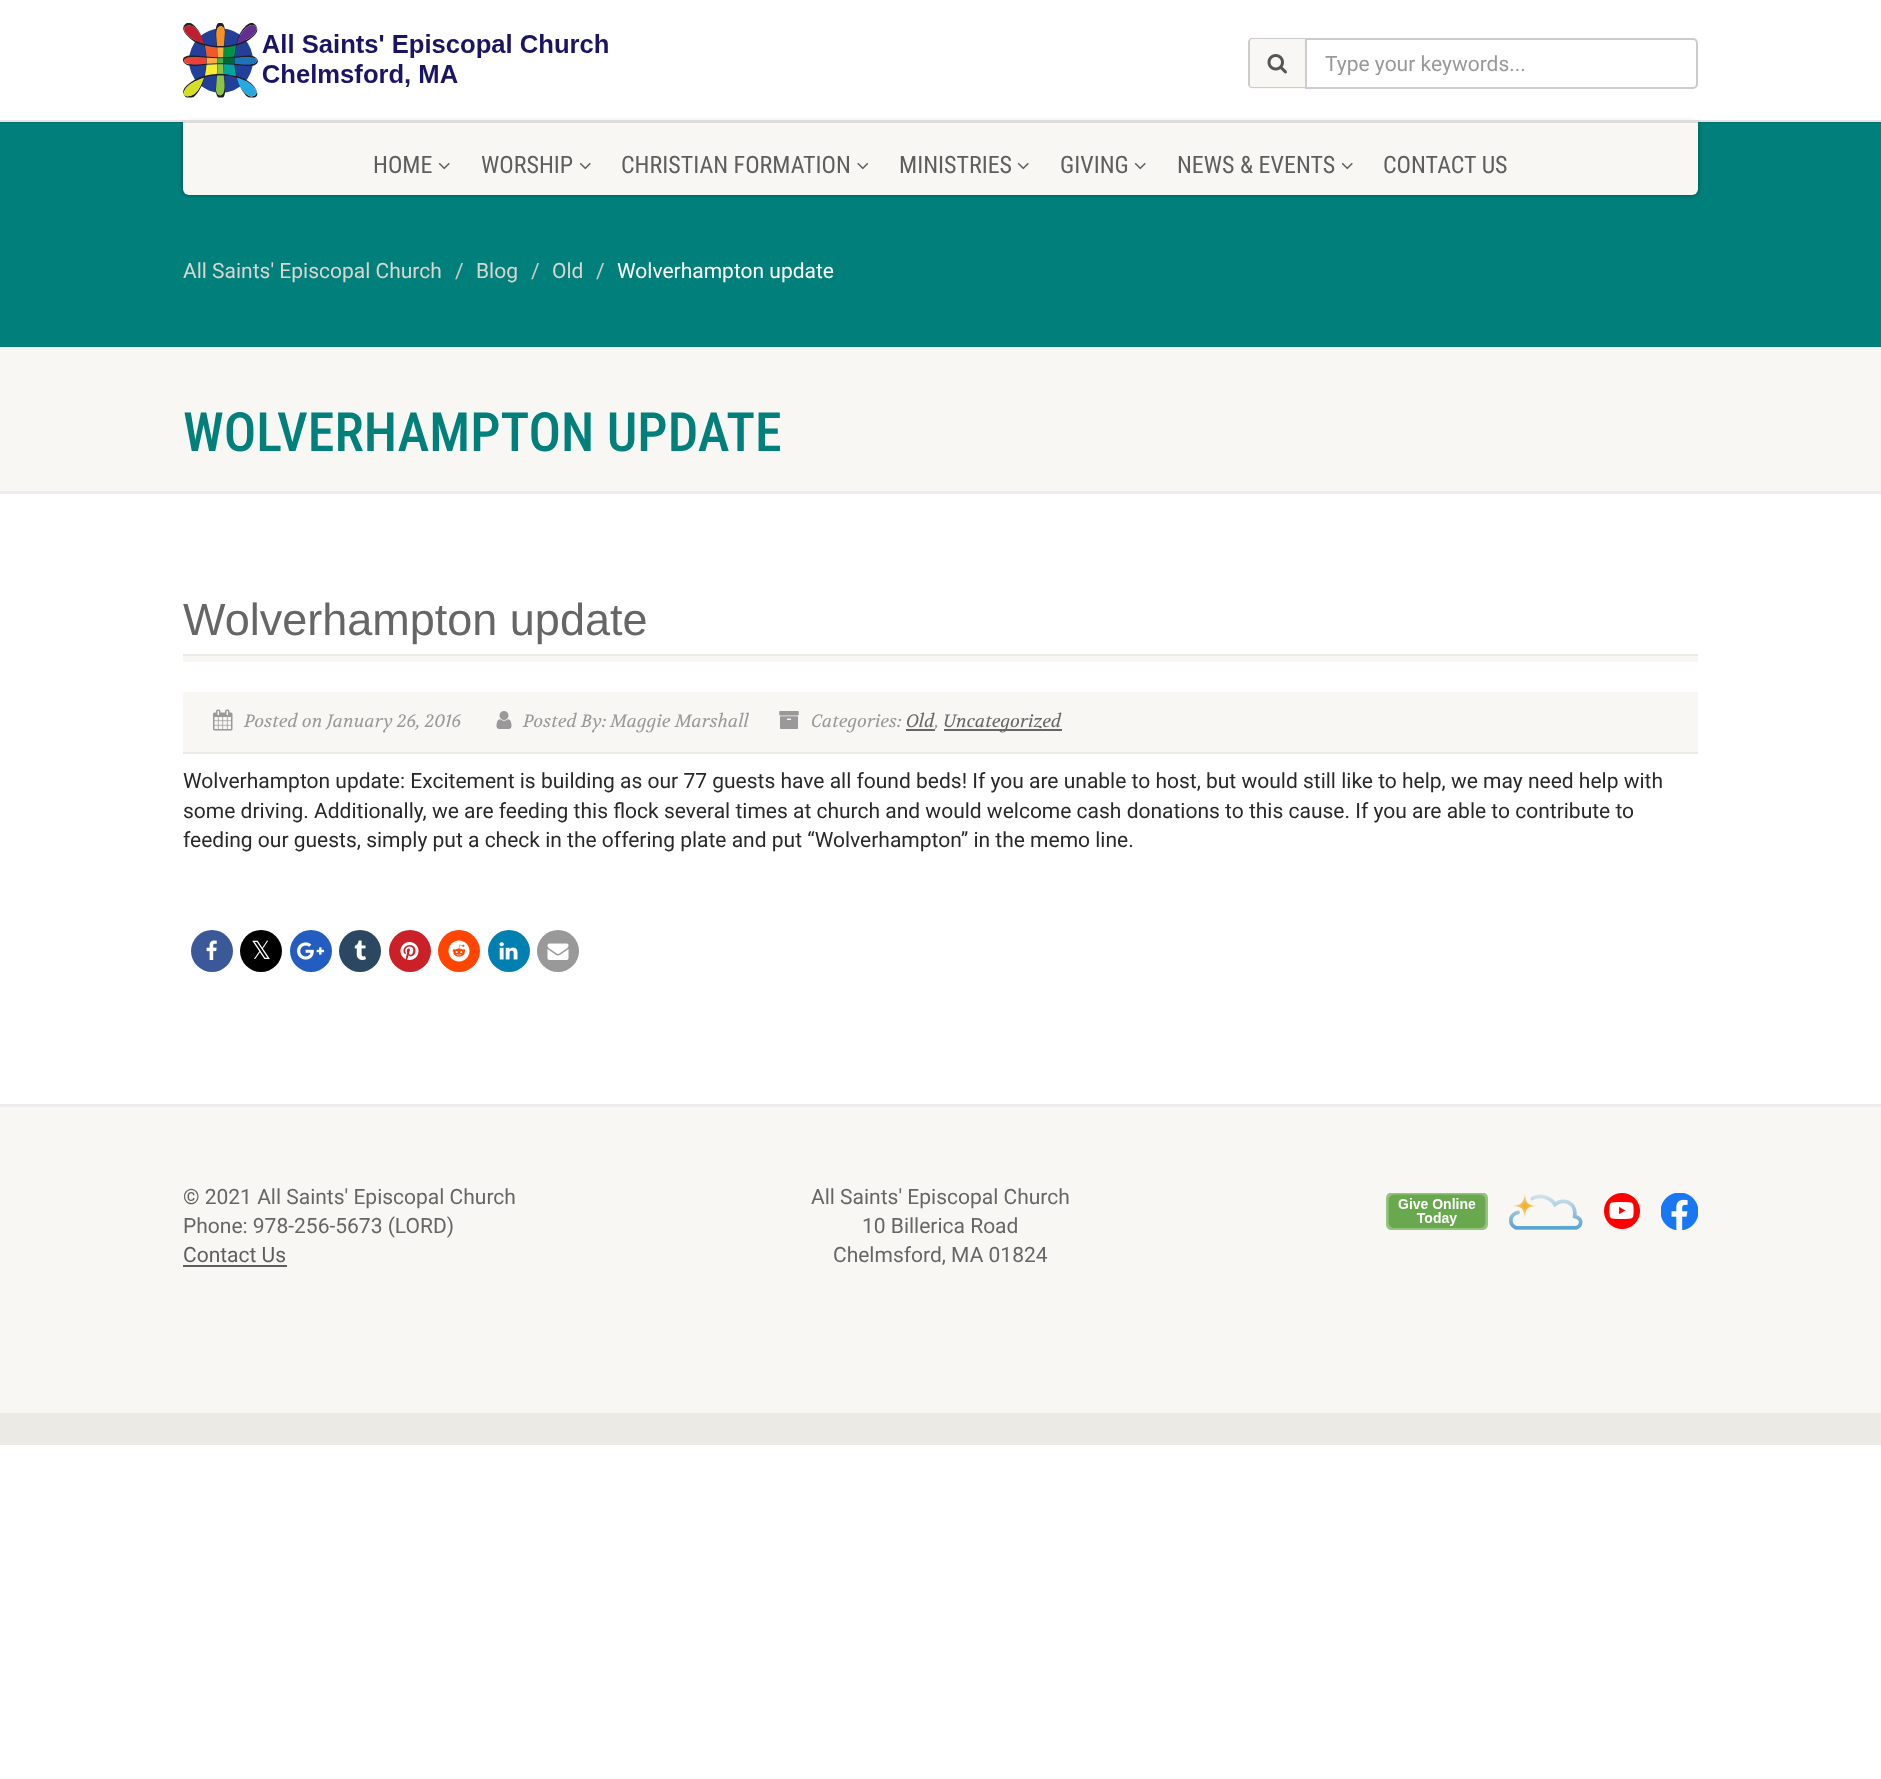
(async () => {
const canvas = document.querySelector("canvas")
canvas.width = 1881
canvas.height = 1779
const c = canvas.getContext("2d")
c.miterLimit = 4
c.fontKerning = "normal"
function T(s,x,y){c.fillText(s,x,y)}
function R(x,y,w,h){c.fillRect(x,y,w,h)}
async function I(src,x,y,w,h){const img=new Image();img.src=src;await img.decode();c.drawImage(img,x,y,w,h)}
let path
c.fillStyle="#fff"
R(0,0,1881,1779)
c.fillStyle="#007f7b"
R(0,122,1881,225)
c.fillStyle="#00000066"
c.filter="blur(2px)"
c.beginPath()
c.roundRect(183,120,1515,75,6)
c.fill()
c.filter="none"
c.fillStyle="#f8f7f3"
c.beginPath()
c.roundRect(183,120,1515,75,[0,0,6,6])
c.fill()
c.fillStyle="#0000001a"
R(0,120,1881,3)
c.fillStyle="#ffffffcc"
R(182,116,1517,4)
await I("1.png",183,23,425,75)
c.fillStyle="#f8f7f3"
c.beginPath()
c.roundRect(1248,38,57,51,[5,0,0,5])
c.fill()
c.fillStyle="#ccc"
path = new Path2D("M1252 38h53v50h-53c-2 0-4-2-4-4v-42c0-2 2-4 4-4zm0 1h53v48h-53c-1 0-2-1-2-3v-42c0-2 1-3 2-3z")
c.fill(path,"evenodd")
await I("2.png",1267,54,20,20)
c.beginPath()
c.roundRect(1306,39,391,49,[0,4,4,0])
c.strokeStyle="#ccc"
c.lineWidth=2
c.stroke()
c.save()
c.beginPath()
c.rect(1325,51,354,24)
c.clip()
c.font="21px Roboto"
c.fillStyle="#999"
T("Type your keywords...",1325,71)
c.restore()
c.font="24px Roboto Condensed"
c.fillStyle="#5e5e5e"
T("HOME",373,173)
await I("3.png",438,162,12,8)
T("WORSHIP",481,173)
await I("3.png",579,162,12,8)
T("CHRISTIAN FORMATION",621,173)
await I("4.png",857,162,12,8)
T("MINISTRIES",899,173)
await I("3.png",1017,162,12,8)
T("GIVING",1060,173)
await I("3.png",1134,162,12,8)
T("NEWS & EVENTS",1177,173)
await I("3.png",1341,162,12,8)
T("CONTACT US",1383,173)
c.font="21px Roboto"
c.fillStyle="#d8d6d1"
T("All Saints' Episcopal Church",183,278)
c.fillStyle="#ccc"
T("/",455,278)
c.fillStyle="#d8d6d1"
T("Blog",476,278)
c.fillStyle="#ccc"
T("/",531,278)
c.fillStyle="#d8d6d1"
T("Old",552,278)
c.fillStyle="#ccc"
T("/",596,278)
c.fillStyle="#fff"
T("Wolverhampton update",617,278)
c.fillStyle="#ededed"
R(0,491,1881,3)
c.fillStyle="#f8f7f3"
R(0,347,1881,144)
c.font="500 54px Roboto Condensed"
c.fillStyle="#007f7b"
T("WOLVERHAMPTON UPDATE",183,451)
c.fillStyle="#eceae4"
R(183,654,1515,2)
c.font="45px Liberation Sans"
c.fillStyle="#666"
T("Wolverhampton update",183,635)
c.fillStyle="#f8f7f3"
R(183,656,1515,6)
R(183,692,1515,60)
c.fillStyle="#eceae4"
R(183,752,1515,2)
await I("5.png",213,709,20,22)
c.font="italic 18px Volkhov"
c.fillStyle="#999"
T("Posted on January 26, 2016",244,727)
await I("6.png",496,711,16,18)
T("Posted By: Maggie Marshall",523,727)
await I("7.png",779,711,20,18)
T("Categories:",811,727)
c.fillStyle="#666"
T("Old",906,727)
R(906,729,29,2)
R(944,729,118,2)
T("Uncategorized",943,727)
c.fillStyle="#999"
T(",",935,727)
c.font="21px Roboto"
c.fillStyle="#292929"
T("Wolverhampton update: Excitement is building as our 77 guests have all found beds! If you are unable to host, but would still like to help, we may need help with",183,788)
T("some driving. Additionally, we are feeding this flock several times at church and would welcome cash donations to this cause. If you are able to contribute to",183,818)
T("feeding our guests, simply put a check in the offering plate and put “Wolverhampton” in the memo line.",183,847)
c.fillStyle="#3b5998"
c.beginPath()
c.arc(212,951,21,0,7)
c.fill()
await I("8.png",206,940,11,20)
c.fillStyle="#000"
c.beginPath()
c.arc(261,951,21,0,7)
c.fill()
c.font="25px DejaVu Sans"
c.fillStyle="#fff"
T("𝕏",251,959)
c.fillStyle="#245dc1"
c.beginPath()
c.arc(311,951,21,0,7)
c.fill()
await I("9.png",297,942,27,18)
c.fillStyle="#2c4762"
c.beginPath()
c.arc(360,951,21,0,7)
c.fill()
await I("10.png",354,940,12,20)
c.fillStyle="#cb2027"
c.beginPath()
c.arc(410,951,21,0,7)
c.fill()
await I("11.png",400,942,19,18)
c.fillStyle="#ff4500"
c.beginPath()
c.arc(459,951,21,0,7)
c.fill()
await I("12.png",448,940,22,22)
c.fillStyle="#007fb1"
c.beginPath()
c.arc(509,951,21,0,7)
c.fill()
await I("13.png",499,942,19,18)
c.fillStyle="#999"
c.beginPath()
c.arc(558,951,21,0,7)
c.fill()
await I("14.png",547,943,22,17)
c.fillStyle="#ededed"
R(0,1104,1881,3)
c.fillStyle="#f8f7f3"
R(0,1107,1881,306)
c.font="21px Roboto"
c.fillStyle="#666"
T("© 2021 All Saints' Episcopal Church",183,1204)
T("Phone: 978-256-5673 (LORD)",183,1233)
c.fillStyle="#5e5e5e"
T("Contact Us",183,1262)
R(183,1265,104,2)
c.fillStyle="#666"
T("All Saints' Episcopal Church",811,1204)
T("10 Billerica Road",862,1233)
T("Chelmsford, MA 01824",833,1262)
await I("15.png",1386,1193,102,37)
await I("16.png",1509,1193,74,37)
await I("17.png",1604,1193,36,36)
await I("18.png",1661,1193,37,37)
c.fillStyle="#eceae4"
R(0,1413,1881,32)
})()
